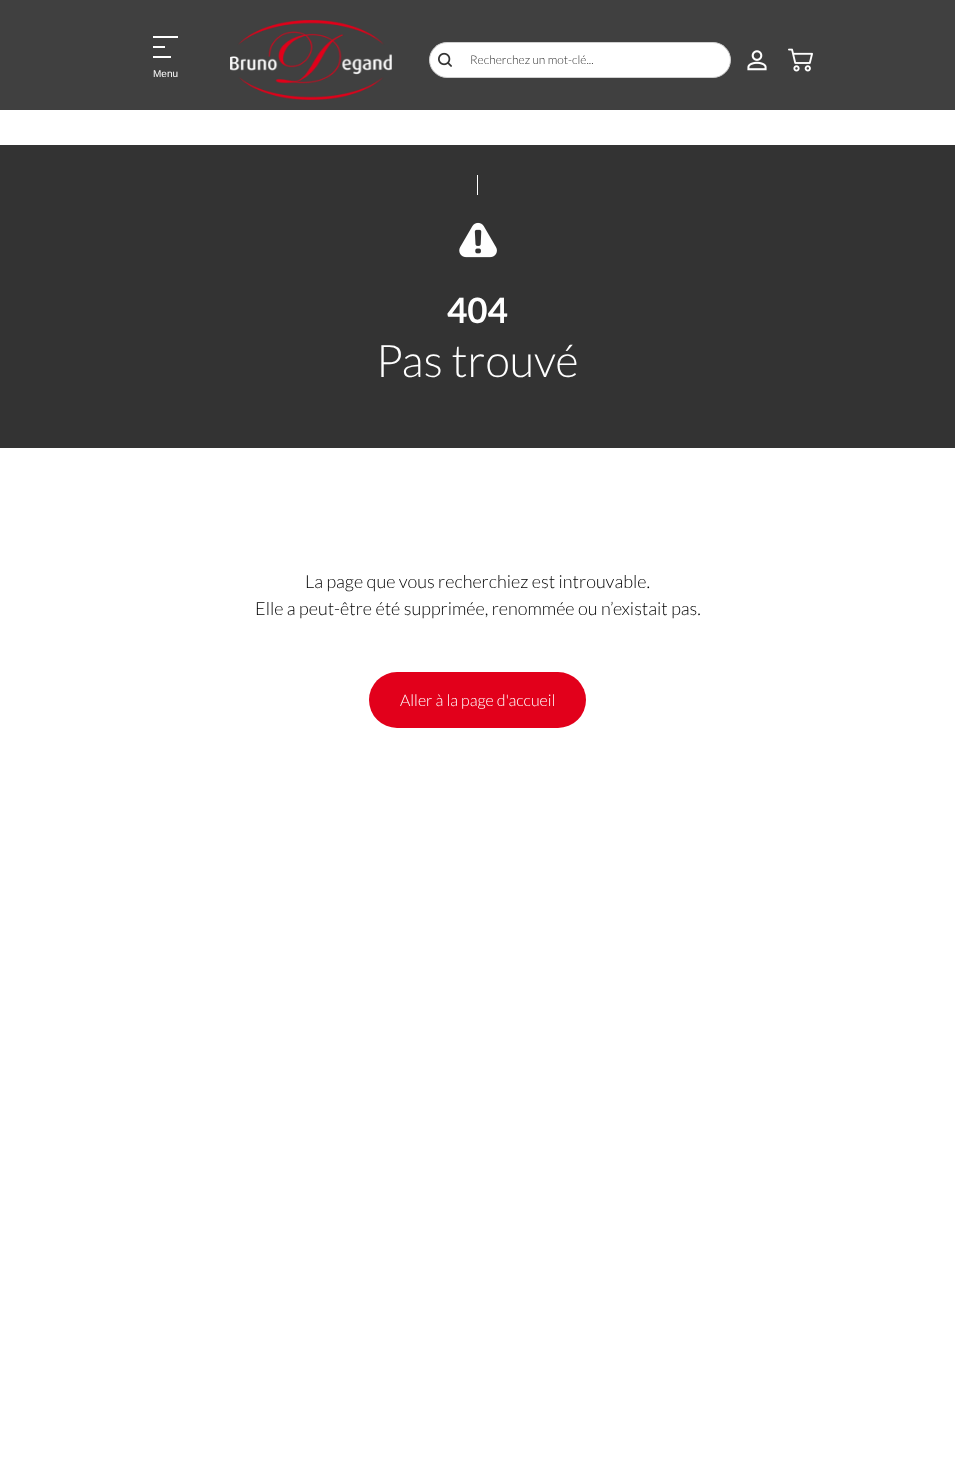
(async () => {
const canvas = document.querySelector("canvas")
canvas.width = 955
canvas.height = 1463
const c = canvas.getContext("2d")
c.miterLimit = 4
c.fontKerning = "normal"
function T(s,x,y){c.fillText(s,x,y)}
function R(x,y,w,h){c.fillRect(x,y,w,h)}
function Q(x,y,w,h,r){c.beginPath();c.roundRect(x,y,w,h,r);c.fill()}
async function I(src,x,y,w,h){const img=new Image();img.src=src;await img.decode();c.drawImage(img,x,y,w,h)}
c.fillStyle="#fff"
R(0,0,955,1463)
c.fillStyle="#404040"
R(0,0,955,110)
await I("1.png",230,20,162,80)
c.fillStyle="#fff"
c.beginPath()
c.roundRect(429.5,42.5,301,35,17.5)
c.fill()
c.strokeStyle="#d0d0d0"
c.stroke()
await I("2.png",438,52,14,15)
c.font="300 12px Lato"
c.fillStyle="#333"
T("Recherchez un mot-clé...",470,64)
await I("3.png",747,50,20,21)
await I("4.png",788,48,25,24)
c.fillStyle="#fff"
R(153,36,25,2)
R(153,46,12,2)
R(153,56,18,2)
c.font="10px Liberation Sans"
T("Menu",153,77)
c.fillStyle="#333"
R(0,145,955,303)
c.fillStyle="#fff"
R(477,175,1,20)
await I("5.png",459,222,38,36)
c.font="bold 35px Lato"
T("404",447,323)
c.font="300 45px Lato"
T("Pas trouvé",376,377)
c.font="300 18px Lato"
c.fillStyle="#000"
T("La page que vous recherchiez est introuvable.",305,588)
T("Elle a peut-être été supprimée, renommée ou n’existait pas.",255,615)
c.fillStyle="#e2001b"
Q(369,672,217,56,28)
c.font="300 16px Lato"
c.fillStyle="#fff"
T("Aller à la page d'accueil",400,706)
})()
